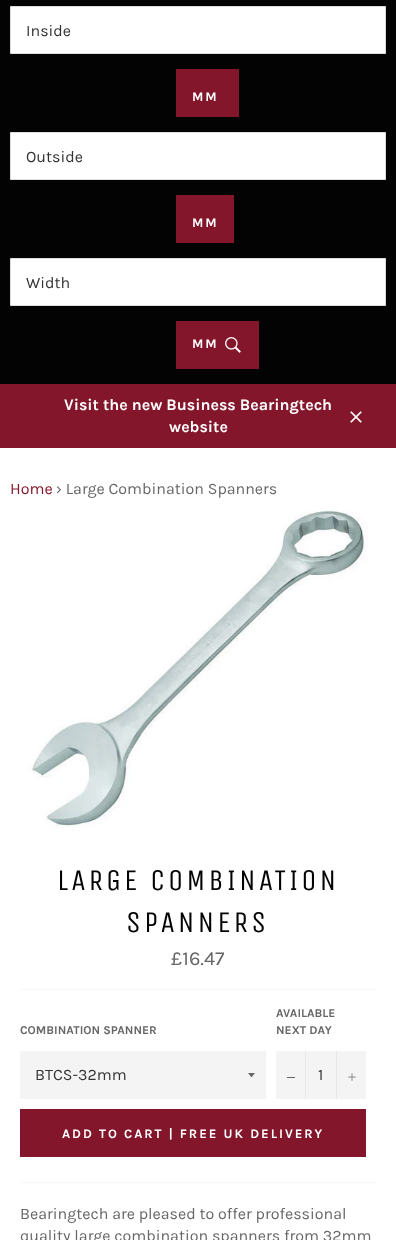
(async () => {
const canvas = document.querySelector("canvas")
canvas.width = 396
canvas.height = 1240
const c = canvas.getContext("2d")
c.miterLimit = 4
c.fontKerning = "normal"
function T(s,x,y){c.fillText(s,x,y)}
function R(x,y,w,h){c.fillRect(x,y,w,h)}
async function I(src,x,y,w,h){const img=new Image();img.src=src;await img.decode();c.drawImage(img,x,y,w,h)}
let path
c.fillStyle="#030303"
R(0,0,396,1240)
c.fillStyle="#fff"
c.beginPath()
c.rect(10.5,6.5,375,47)
c.fill()
c.strokeStyle="#ddd"
c.stroke()
c.font="16px Karla"
c.fillStyle="#333"
T("Inside",26,36)
c.fillStyle="#83162a"
R(176,69,63,48)
c.letterSpacing="1.95px"
c.font="bold 13px Karla"
c.fillStyle="#fff"
T("MM",192,101)
c.beginPath()
c.rect(10.5,132.5,375,47)
c.fill()
c.stroke()
c.letterSpacing="0px"
c.font="16px Karla"
c.fillStyle="#333"
T("Outside",26,162)
c.fillStyle="#83162a"
R(176,195,58,48)
c.letterSpacing="1.95px"
c.font="bold 13px Karla"
c.fillStyle="#fff"
T("MM",192,227)
c.beginPath()
c.rect(10.5,258.5,375,47)
c.fill()
c.stroke()
c.letterSpacing="0px"
c.font="16px Karla"
c.fillStyle="#333"
T("Width",26,288)
c.fillStyle="#83162a"
R(176,321,83,48)
c.letterSpacing="1.95px"
c.font="bold 13px Karla"
c.fillStyle="#fff"
T("MM",192,348)
await I("1.png",225,337,16,16)
c.fillStyle="#83162a"
R(0,384,396,64)
c.letterSpacing="0px"
c.font="bold 16px Karla"
c.fillStyle="#fff"
T("Visit the new Business Bearingtech",64,410)
T("website",169,432)
await I("2.png",350,411,12,12)
R(0,448,396,792)
c.font="16px Karla"
c.fillStyle="#83162a"
T("Home",10,494)
c.fillStyle="#666"
T("› Large Combination Spanners",56,494)
await I("3.png",28,510,340,318)
c.letterSpacing="3px"
c.font="30px Unica One"
c.fillStyle="#030303"
T("LARGE COMBINATION",57,890)
T("SPANNERS",126,932)
c.letterSpacing="0px"
c.font="20px Karla"
c.fillStyle="#666"
T("£16.47",171,965)
c.fillStyle="#f7f7f7"
R(20,989,356,1)
c.font="bold 12px Karla"
c.fillStyle="#666"
T("COMBINATION SPANNER",20,1034)
c.fillStyle="#f4f4f4"
R(20,1051,246,48)
c.fillStyle="#666"
path = new Path2D("M248 1073c4.5 5.5 2.5 5.5 7 0z")
c.fill(path)
c.font="16px Karla"
c.fillStyle="#333"
T("BTCS-32mm",35,1080)
c.font="bold 12px Karla"
c.fillStyle="#666"
T("AVAILABLE",276,1017)
T("NEXT DAY",276,1034)
c.fillStyle="#f4f4f4"
R(276,1051,90,48)
c.fillStyle="#e7e7e7"
R(305,1051,1,48)
c.fillStyle="#666"
R(287,1077,8,1)
c.font="16px Karla"
c.fillStyle="#333"
T("1",318,1080)
c.fillStyle="#e7e7e7"
R(336,1051,1,48)
await I("4.png",348,1073,8,8)
c.fillStyle="#83162a"
R(20,1109,346,48)
c.letterSpacing="1.95px"
c.font="bold 13px Karla"
c.fillStyle="#fff"
T("ADD TO CART | FREE UK DELIVERY",62,1138)
c.fillStyle="#f7f7f7"
R(20,1182,356,1)
c.letterSpacing="0px"
c.font="16px Karla"
c.fillStyle="#666"
T("Bearingtech are pleased to offer professional",20,1219)
T("quality large combination spanners from 32mm",20,1241)
})()
